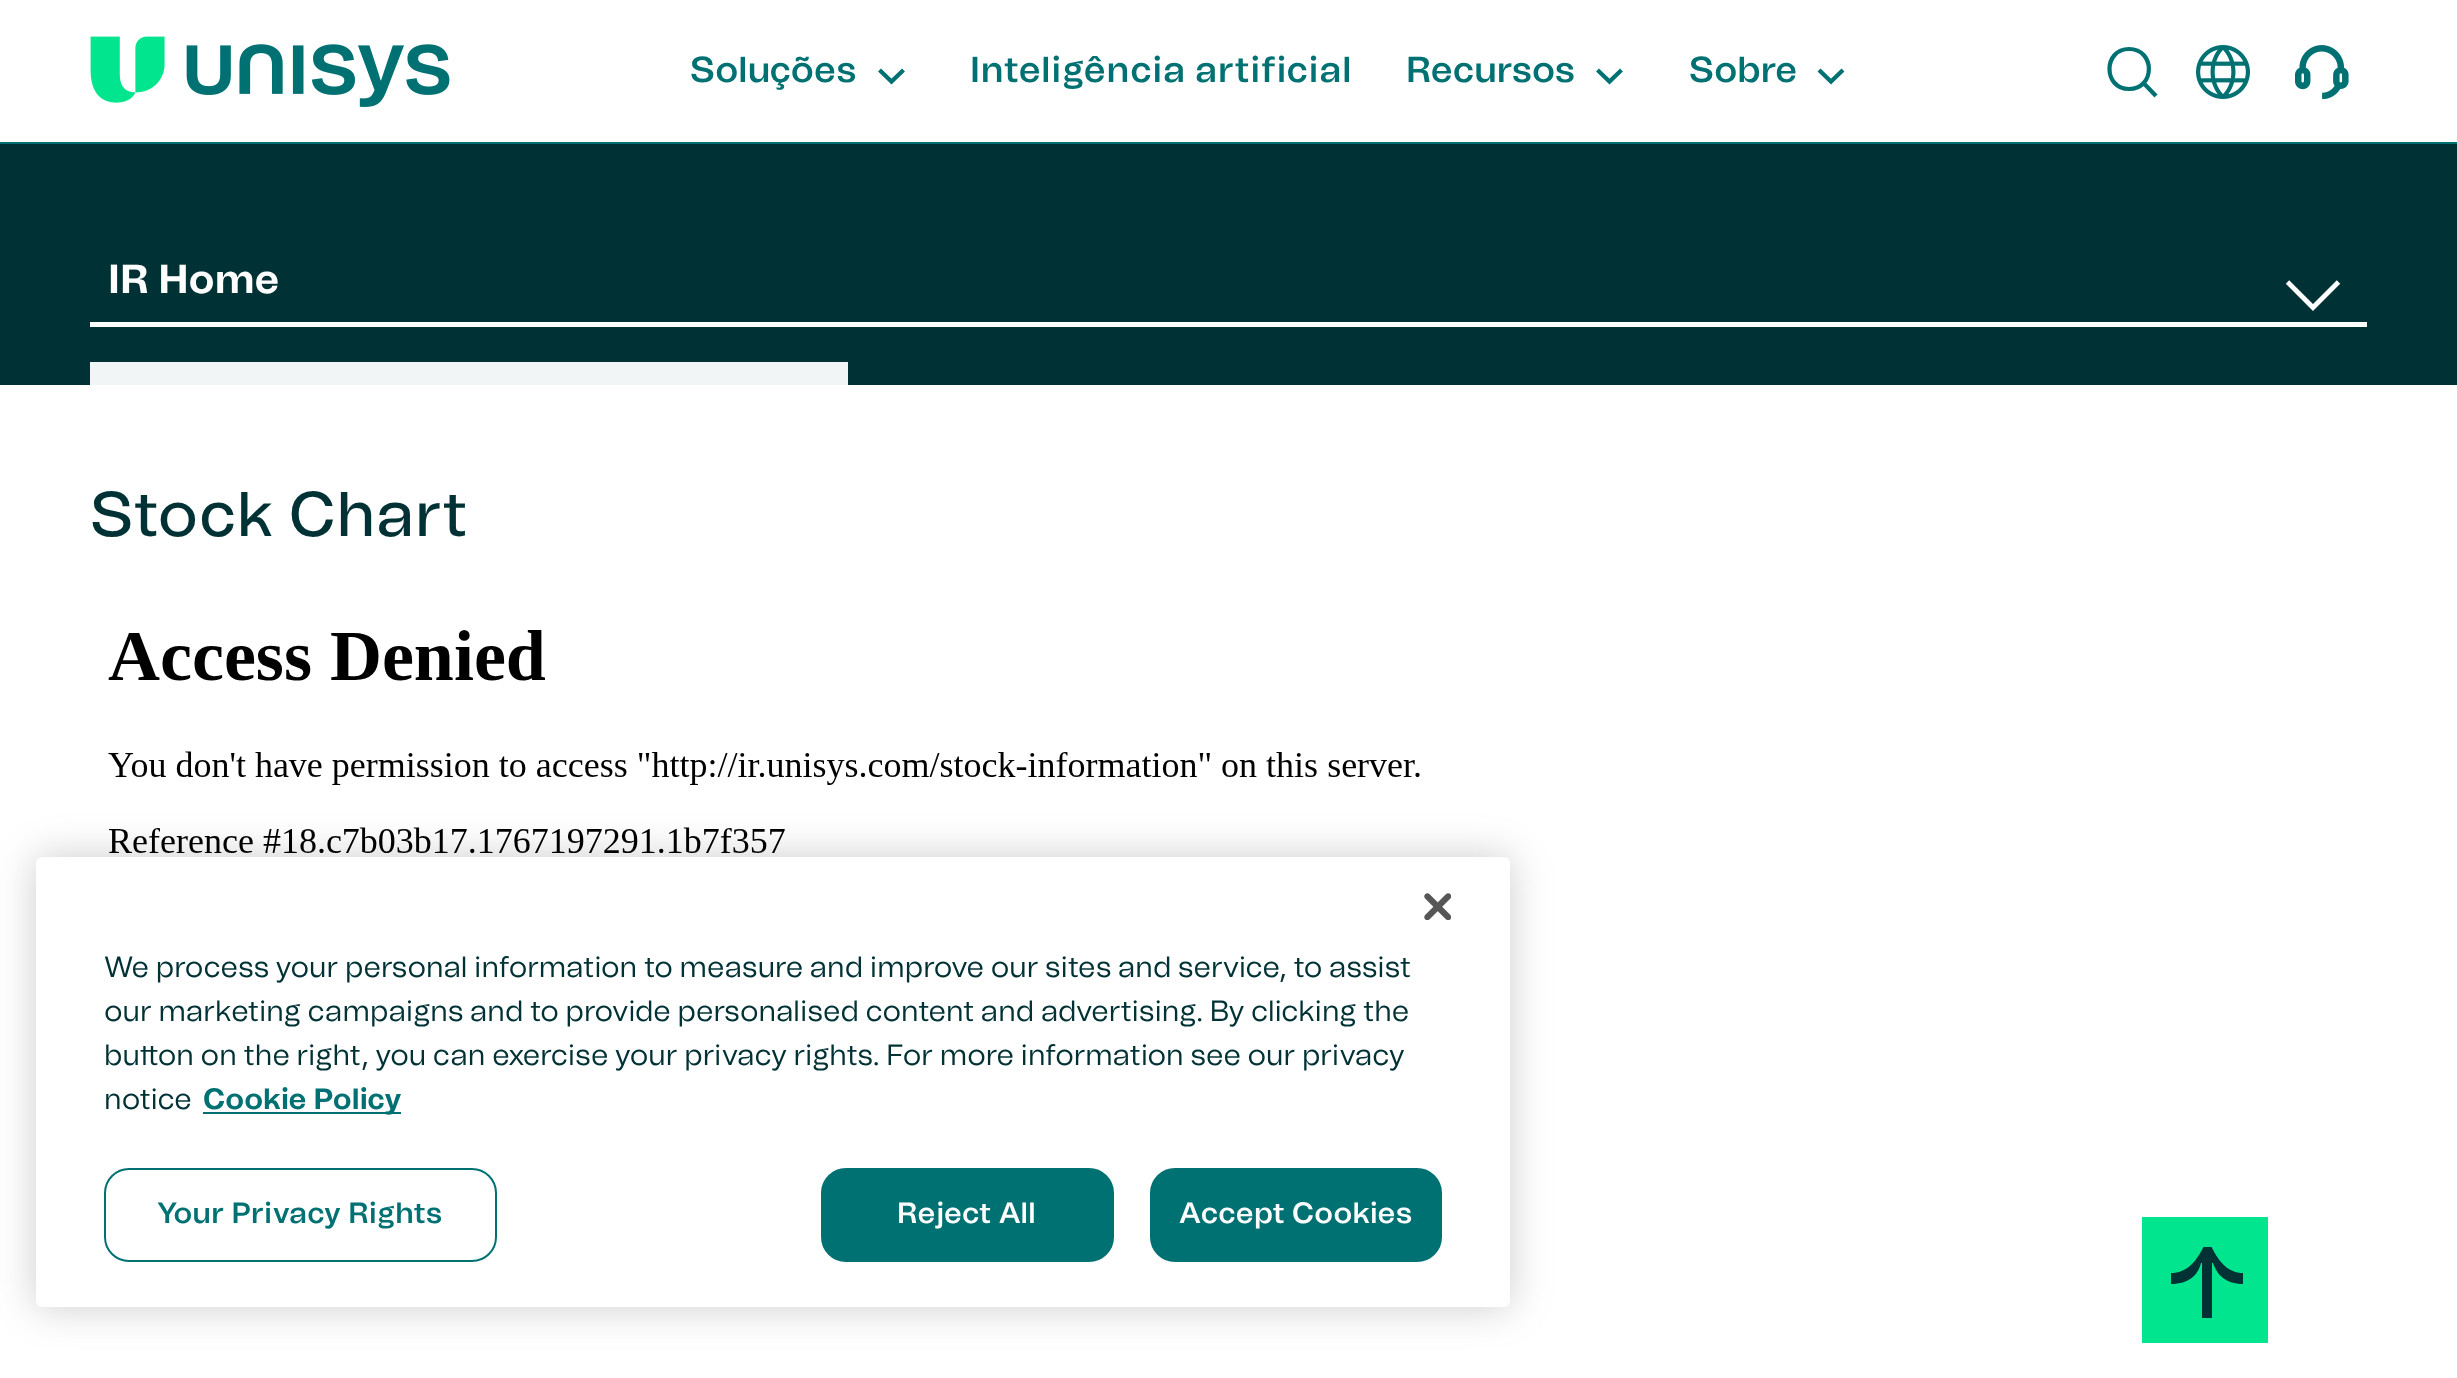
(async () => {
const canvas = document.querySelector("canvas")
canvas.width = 2457
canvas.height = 1378
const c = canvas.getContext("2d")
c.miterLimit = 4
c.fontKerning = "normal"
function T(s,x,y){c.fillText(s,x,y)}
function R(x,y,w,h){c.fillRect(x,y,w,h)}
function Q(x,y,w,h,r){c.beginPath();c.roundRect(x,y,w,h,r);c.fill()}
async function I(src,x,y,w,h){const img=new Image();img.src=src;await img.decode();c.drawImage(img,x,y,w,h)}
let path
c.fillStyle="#fff"
R(0,0,2457,1378)
c.fillStyle="#007173"
R(0,142,2457,2)
await I("1.png",90,36,360,71)
c.font="600 36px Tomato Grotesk"
T("Soluções",690,82)
path = new Path2D("M879.5 70l12 11.5l12-11.5")
c.strokeStyle="#007173"
c.lineWidth=4.2
c.stroke(path)
c.letterSpacing="0.8px"
T("Inteligência artificial",970,82)
c.letterSpacing="0px"
T("Recursos",1406,82)
path = new Path2D("M1597.5 70l12 11.5l12-11.5")
c.stroke(path)
T("Sobre",1689,82)
path = new Path2D("M1819 70l12 11.5l12-11.5")
c.stroke(path)
path = new Path2D("M2129 89c26.5 0 26.5-40 0-40c-26 0-26 40 0 40zm14.5-6l12.5 13")
c.stroke(path)
await I("2.png",2196,45,54,54)
await I("3.png",2295,45,54,54)
c.fillStyle="#003134"
R(0,144,2457,241)
c.fillStyle="#fff"
R(90,322,2277,5)
c.font="bold 40.5px Tomato Grotesk"
T("IR Home",108,293)
path = new Path2D("M2287.5 282l25.5 25.5l25.5-25.5")
c.strokeStyle="#fff"
c.lineWidth=4.8
c.stroke(path)
c.fillStyle="#f2f5f5"
R(90,362,758,23)
c.letterSpacing="0.8px"
c.font="500 63px Tomato Grotesk"
c.fillStyle="#003134"
T("Stock Chart",90,536)
await I("4.png",108,630,1312,223)
c.fillStyle="#00000033"
c.filter="blur(20px)"
c.beginPath()
c.roundRect(36,857,1474,450,6)
c.fill()
c.filter="none"
c.fillStyle="#fff"
Q(36,857,1474,450,6)
await I("5.png",1424,893,27,27)
c.letterSpacing="0px"
c.font="29.25px Tomato Grotesk"
c.fillStyle="#003134"
T("We process your personal information to measure and improve our sites and service, to assist",104,977)
T("our marketing campaigns and to provide personalised content and advertising. By clicking the",104,1021)
T("button on the right, you can exercise your privacy rights. For more information see our privacy",104,1065)
T("notice",104,1109)
c.fillStyle="#007173"
R(203,1112,198,2)
c.font="bold 29.25px Tomato Grotesk"
T("Cookie Policy",203,1109)
c.beginPath()
c.roundRect(105,1169,391,92,24)
c.strokeStyle="#007173"
c.lineWidth=2
c.stroke()
c.letterSpacing="0.25px"
c.font="600 29.25px Tomato Grotesk"
T("Your Privacy Rights",157,1223)
c.beginPath()
c.roundRect(822,1169,291,92,24)
c.fill()
c.stroke()
c.fillStyle="#fff"
T("Reject All",897,1223)
c.fillStyle="#007173"
c.beginPath()
c.roundRect(1151,1169,290,92,24)
c.fill()
c.stroke()
c.fillStyle="#fff"
T("Accept Cookies",1179,1223)
c.fillStyle="#00e58e"
R(2142,1217,126,126)
c.save()
c.beginPath()
c.rect(2171,1247,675,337)
c.clip()
c.fillStyle="#003134"
path = new Path2D("M2171 1273v11c18 0 27-9 30-21h1v55h10v-55h1c4 12 13 21 30 21v-11c-15 0-24-11-32-27h-7c-8 16-17 27-33 27z")
c.fill(path)
c.restore()
})()
